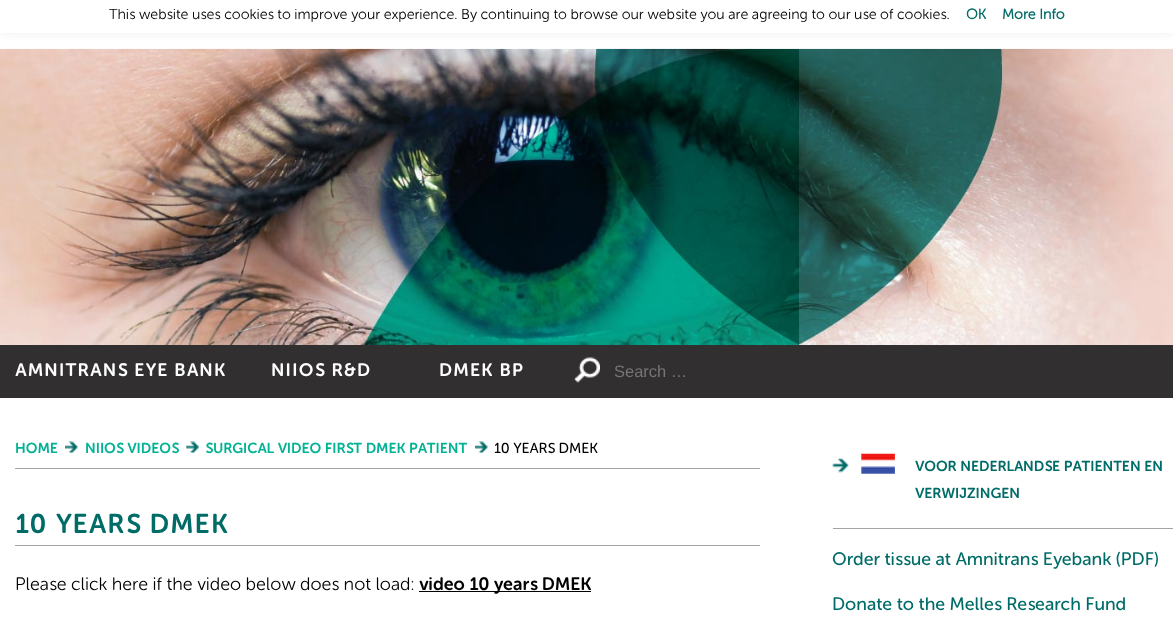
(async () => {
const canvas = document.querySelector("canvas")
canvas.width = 1173
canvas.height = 641
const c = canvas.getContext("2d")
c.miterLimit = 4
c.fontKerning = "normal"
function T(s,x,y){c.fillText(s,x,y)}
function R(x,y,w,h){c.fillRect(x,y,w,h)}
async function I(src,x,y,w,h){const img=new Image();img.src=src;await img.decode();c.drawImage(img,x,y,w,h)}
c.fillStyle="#fff"
R(0,0,1173,641)
await I("1.png",0,48,1173,297)
c.fillStyle="#acabab4d"
c.filter="blur(6px)"
c.beginPath()
c.rect(0,-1,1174,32)
c.fill()
c.filter="none"
c.fillStyle="#fff"
R(0,0,1173,33)
c.font="14.4px 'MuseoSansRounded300'"
c.fillStyle="#000"
T("This website uses cookies to improve your experience. By continuing to browse our website you are agreeing to our use of cookies.",109,19)
c.font="bold 14.4px 'MuseoSansRounded300'"
c.fillStyle="#006c68"
T("OK",966,19)
T("More Info",1002,19)
c.fillStyle="#322f31"
R(0,345,1173,53)
c.letterSpacing="1.25px"
c.font="18px 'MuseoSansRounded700'"
c.fillStyle="#fff"
T("AMNITRANS EYE BANK",15,376)
T("NIIOS R&D",271,376)
T("DMEK BP",439,376)
await I("2.png",573,357,27,26)
c.letterSpacing="0px"
c.font="16.5px Liberation Sans"
c.fillStyle="#757575"
T("Search …",614,377)
c.fillStyle="#a3a3a7"
R(15,468,745,1)
c.font="14.4px 'MuseoSansRounded700'"
c.fillStyle="#02b294"
T("HOME",15,453)
await I("3.png",65,441,13,12)
T("NIIOS VIDEOS",85,453)
await I("4.png",186,441,13,12)
T("SURGICAL VIDEO FIRST DMEK PATIENT",205,453)
await I("5.png",475,441,13,12)
c.font="14.4px 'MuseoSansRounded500'"
c.fillStyle="#000"
T("10 YEARS DMEK",494,453)
c.fillStyle="#a3a3a7"
R(15,545,745,1)
c.letterSpacing="1.25px"
c.font="27px 'MuseoSansRounded700'"
c.fillStyle="#006c68"
T("10 YEARS DMEK",15,533)
c.letterSpacing="0px"
c.font="18px 'MuseoSansRounded300'"
c.fillStyle="#000"
T("Please click here if the video below does not load:",15,590)
R(419,591,172,1)
c.font="18px 'MuseoSansRounded700'"
T("video 10 years DMEK",419,590)
c.fillStyle="#a3a3a7"
R(833,528,340,1)
await I("6.png",832,458,17,15)
await I("7.png",861,453,34,21)
c.font="14.4px 'MuseoSansRounded700'"
c.fillStyle="#006c68"
T("VOOR NEDERLANDSE PATIENTEN EN",915,471)
T("VERWIJZINGEN",915,498)
c.font="18px 'MuseoSansRounded500'"
T("Order tissue at Amnitrans Eyebank (PDF)",832,565)
T("Donate to the Melles Research Fund",832,610)
})()
